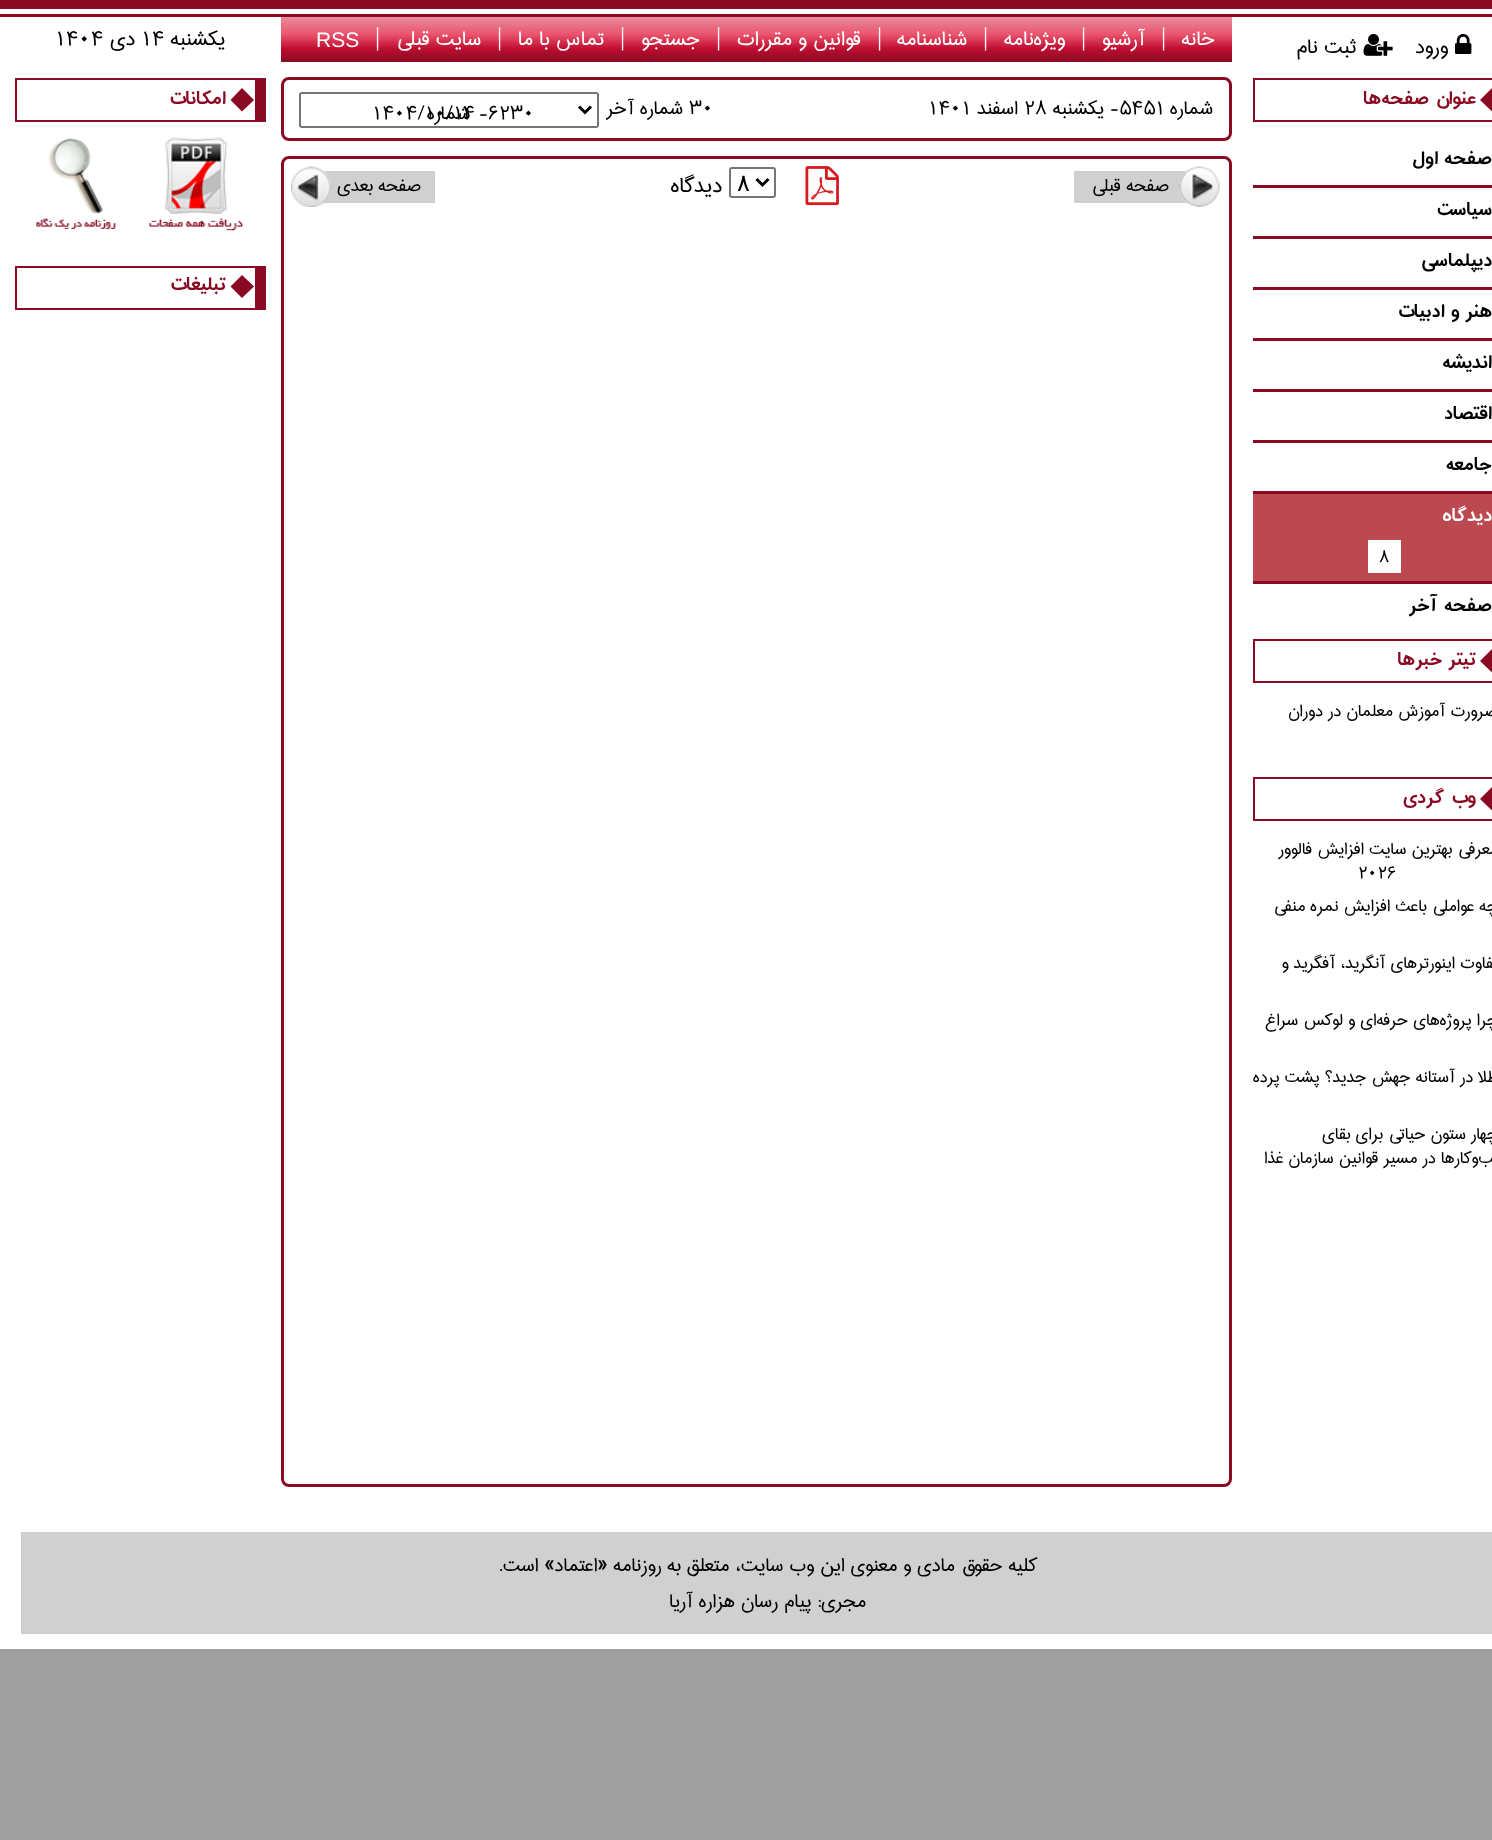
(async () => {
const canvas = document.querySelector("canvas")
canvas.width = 1492
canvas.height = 1840
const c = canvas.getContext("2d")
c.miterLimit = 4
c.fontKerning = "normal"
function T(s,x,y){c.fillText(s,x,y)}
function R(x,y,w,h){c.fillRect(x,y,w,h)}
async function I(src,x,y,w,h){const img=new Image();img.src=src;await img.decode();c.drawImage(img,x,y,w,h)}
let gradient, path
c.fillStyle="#a0a0a0"
R(0,0,1492,1840)
c.fillStyle="#fff"
R(0,9,1492,1640)
c.fillStyle="#890a22"
R(0,0,1492,9)
R(0,14,1492,3)
await I("1.png",1455,34,17,20)
c.direction="rtl"
c.font="25.5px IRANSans"
c.fillStyle="#000"
T("ورود",1448,53)
await I("2.png",1363,34,30,22)
T("ثبت نام",1356,53)
c.fillStyle="#890a22"
R(1253,78,239,2)
R(1253,120,239,2)
R(1253,78,2,44)
path = new Path2D("M1492 88l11.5 12l-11.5 11.5l-12-11.5z")
c.fill(path)
c.font="bold 22.5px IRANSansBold"
T("عنوان صفحه‌ها",1476,104)
R(1253,185,239,3)
c.fillStyle="#000"
T("صفحه اول",1492,164)
c.fillStyle="#890a22"
R(1253,236,239,3)
c.fillStyle="#000"
T("سیاست",1492,215)
c.fillStyle="#890a22"
R(1253,287,239,3)
c.fillStyle="#000"
T("دیپلماسی",1492,266)
c.fillStyle="#890a22"
R(1253,338,239,3)
c.fillStyle="#000"
T("هنر و ادبيات",1492,317)
c.fillStyle="#890a22"
R(1253,389,239,3)
c.fillStyle="#000"
T("انديشه",1492,368)
c.fillStyle="#890a22"
R(1253,440,239,3)
c.fillStyle="#000"
T("اقتصاد",1492,419)
c.fillStyle="#890a22"
R(1253,491,239,3)
c.fillStyle="#000"
T("جامعه",1492,470)
c.fillStyle="#bc4850"
R(1253,494,239,87)
c.fillStyle="#890a22"
R(1253,581,239,3)
c.fillStyle="#fff"
T("ديدگاه",1492,521)
R(1368,540,33,33)
c.direction="ltr"
c.font="21px IRANSans"
c.fillStyle="#000"
T("8",1379,562)
c.direction="rtl"
c.font="bold 22.5px IRANSansBold"
T("صفحه آخر",1492,611)
c.fillStyle="#890a22"
R(1253,639,239,2)
R(1253,681,239,2)
R(1253,639,2,44)
path = new Path2D("M1492 649l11.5 12l-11.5 11.5l-12-11.5z")
c.fill(path)
T("تیتر خبرها",1476,665)
c.font="21px IRANSans"
c.fillStyle="#000"
T("ضرورت آموزش معلمان در دوران",1498,716)
c.fillStyle="#890a22"
R(1253,777,239,2)
R(1253,819,239,2)
R(1253,777,2,44)
path = new Path2D("M1492 787l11.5 12l-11.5 11.5l-12-11.5z")
c.fill(path)
c.font="bold 22.5px IRANSansBold"
T("وب گردی",1476,803)
c.font="21px IRANSans"
c.fillStyle="#000"
T("معرفی بهترین سایت افزایش فالوور",1498,854)
c.direction="ltr"
T("2026",1358,878)
c.direction="rtl"
T("چه عواملی باعث افزایش نمره منفی",1498,911)
T("تفاوت اینورترهای آنگرید، آفگرید و",1498,968)
T("چرا پروژه‌های حرفه‌ای و لوکس سراغ",1498,1025)
T("طلا در آستانه جهش جدید؟ پشت پرده",1498,1082)
T("چهار ستون حیاتی برای بقای",1498,1139)
T("کسب‌وکارها در مسیر قوانین سازمان غذا",1515,1163)
gradient = c.createLinearGradient(756,16,756,62)
gradient.addColorStop(0,"#e78fa0")
gradient.addColorStop(.4,"#ea546d")
gradient.addColorStop(.71,"#be0e31")
gradient.addColorStop(1,"#890a22")
c.fillStyle = gradient
R(281,17,951,45)
c.font="25.5px IRANSans"
c.fillStyle="#fff"
T("خانه",1215,45)
c.direction="ltr"
c.font="25.5px Liberation Serif"
T("|",1161,45)
c.direction="rtl"
c.font="25.5px IRANSans"
T("آرشیو",1145,45)
c.direction="ltr"
c.font="25.5px Liberation Serif"
T("|",1081,45)
c.direction="rtl"
c.font="25.5px IRANSans"
T("ویژه‌نامه",1065,45)
c.direction="ltr"
c.font="25.5px Liberation Serif"
T("|",983,45)
c.direction="rtl"
c.font="25.5px IRANSans"
T("شناسنامه",967,45)
c.direction="ltr"
c.font="25.5px Liberation Serif"
T("|",877,45)
c.direction="rtl"
c.font="25.5px IRANSans"
T("قوانین و مقررات",861,45)
c.direction="ltr"
c.font="25.5px Liberation Serif"
T("|",716,45)
c.direction="rtl"
c.font="25.5px IRANSans"
T("جستجو",700,45)
c.direction="ltr"
c.font="25.5px Liberation Serif"
T("|",620,45)
c.direction="rtl"
c.font="25.5px IRANSans"
T("تماس با ما",604,45)
c.direction="ltr"
c.font="25.5px Liberation Serif"
T("|",497,45)
c.direction="rtl"
c.font="25.5px IRANSans"
T("سایت قبلی",481,45)
c.direction="ltr"
c.font="25.5px Liberation Serif"
T("|",375,45)
c.font="21px Liberation Sans"
T("RSS",316,47)
c.beginPath()
c.roundRect(282.5,78.5,948,61,6.5)
c.strokeStyle="#890a22"
c.lineWidth=3
c.stroke()
c.direction="rtl"
c.font="24px IRANSans"
c.fillStyle="#000"
T("شماره",1213,114)
c.direction="ltr"
T("-5451",1110,114)
c.direction="rtl"
T("يکشنبه",1104,114)
c.direction="ltr"
T("28",1024,114)
c.direction="rtl"
T("اسفند",1018,114)
c.direction="ltr"
T("1401",928,114)
T("30",689,114)
c.direction="rtl"
T("شماره آخر",683,114)
c.beginPath()
c.roundRect(300,93,298,34,2)
c.strokeStyle="#767676"
c.lineWidth=2
c.stroke()
path = new Path2D("M579 106.5l6 6l6-6")
c.strokeStyle="#000"
c.lineWidth=3
c.stroke(path)
c.direction="ltr"
T("6230",488,119)
T("1404/10/14",372,119)
c.wordSpacing="3px"
c.direction="rtl"
T("- شماره",488,119)
c.beginPath()
c.roundRect(282.5,157.5,948,1328,6.5)
c.strokeStyle="#890a22"
c.stroke()
c.fillStyle="#d0d0d0"
R(1074,171,113,32)
await I("3.png",1179,166,41,41)
c.wordSpacing="0px"
c.font="22.5px IRANSans"
c.fillStyle="#000"
T("صفحه قبلی",1169,191)
await I("4.png",805,166,34,40)
c.beginPath()
c.roundRect(730,168,45,29,2)
c.strokeStyle="#767676"
c.lineWidth=2
c.stroke()
path = new Path2D("M756.5 179l6 6l6-6")
c.strokeStyle="#000"
c.lineWidth=3
c.stroke(path)
c.direction="ltr"
c.font="24px DejaVu Sans"
T("۸",737,191)
c.direction="rtl"
c.font="27px IRANSans"
T("ديدگاه",722,192)
c.fillStyle="#d0d0d0"
R(323,171,112,32)
c.font="22.5px IRANSans"
c.fillStyle="#000"
T("صفحه بعدی",421,191)
await I("5.png",291,166,41,41)
c.font="25.5px IRANSans"
T("يکشنبه",225,45)
c.direction="ltr"
T("14",141,45)
c.direction="rtl"
T("دي",135,45)
c.direction="ltr"
T("1404",55,45)
c.fillStyle="#890a22"
R(15,78,240,2)
R(255,78,11,42)
R(15,120,251,2)
R(15,78,2,44)
path = new Path2D("M242 88l12 12l-12 11.5l-11.5-11.5z")
c.fill(path)
c.direction="rtl"
c.font="bold 22.5px IRANSansBold"
T("امکانات",226,104)
await I("6.png",149,137,95,94)
await I("7.png",36,138,80,91)
R(15,266,240,2)
R(255,266,11,42)
R(15,308,251,2)
R(15,266,2,43)
path = new Path2D("M242 275l12 11.5l-12 11.5l-11.5-11.5z")
c.fill(path)
T("تبلیغات",226,290)
c.fillStyle="#d0d0d0"
R(21,1532,1471,102)
c.font="24px IRANSans"
c.fillStyle="#000"
T("كلیه حقوق مادی و معنوی این وب سایت، متعلق به روزنامه «اعتماد» است.",1037,1571)
T("مجری: پیام رسان هزاره آریا",866,1607)
})()
